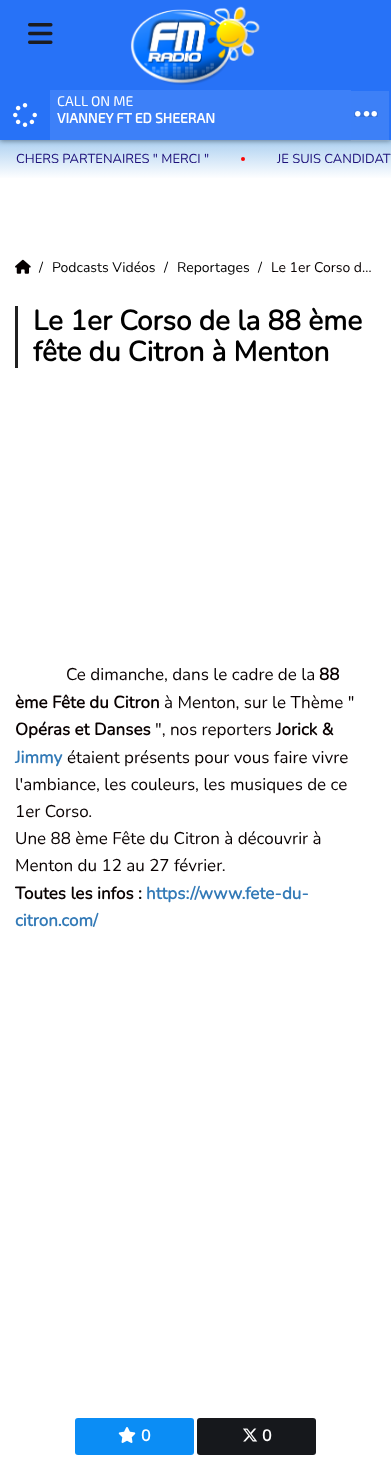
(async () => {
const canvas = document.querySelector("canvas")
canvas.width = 391
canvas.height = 1471
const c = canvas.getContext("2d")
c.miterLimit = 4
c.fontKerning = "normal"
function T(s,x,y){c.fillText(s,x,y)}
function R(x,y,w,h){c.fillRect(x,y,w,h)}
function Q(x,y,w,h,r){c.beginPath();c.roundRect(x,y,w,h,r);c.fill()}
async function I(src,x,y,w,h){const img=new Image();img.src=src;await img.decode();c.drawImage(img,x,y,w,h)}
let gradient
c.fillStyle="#fff"
R(0,0,391,1471)
gradient = c.createLinearGradient(196,140,196,179)
gradient.addColorStop(0,"#acd0f1")
gradient.addColorStop(1,"#fff")
c.fillStyle = gradient
R(0,140,391,38)
c.fillStyle="#00000066"
c.filter="blur(2.5px)"
c.beginPath()
c.rect(0,91,391,50)
c.fill()
c.filter="none"
c.fillStyle="#2772f7"
R(0,0,391,140)
await I("1.png",28,23,25,21)
await I("2.png",130,6,130,79)
await I("3.png",13,103,24,24)
c.fillStyle="#3d80f8"
R(50,90,301,50)
c.font="14px 'Exo 2'"
c.fillStyle="#fff"
T("CALL ON ME",57,106)
c.font="bold 14px 'Exo 2'"
T("VIANNEY FT ED SHEERAN",57,123)
c.fillStyle="#ffffff1a"
R(351,91,38,50)
await I("4.png",354,110,24,7)
c.font="13px Nunito"
c.fillStyle="#1c0f79"
T("CHERS PARTENAIRES \" MERCI \"",16,163)
c.fillStyle="#fc0505"
c.beginPath()
c.arc(243,159,2,0,7)
c.fill()
c.fillStyle="#1c0f79"
T("JE SUIS CANDIDAT",277,163)
await I("5.png",15,259,16,15)
c.font="14px Nunito"
c.fillStyle="#000"
T("/",39,272)
T("Podcasts Vidéos",52,272)
T("/",164,272)
T("Reportages",177,272)
T("/",258,272)
c.fillStyle="#080000"
T("Le 1er Corso d…",271,272)
c.fillStyle="#202020"
R(15,306,3,62)
c.font="bold 28px Nunito"
c.fillStyle="#000"
T("Le 1er Corso de la 88 ème",33,330)
T("fête du Citron à Menton",33,361)
c.font="17px Nunito"
c.fillStyle="#080000"
T("Ce dimanche, dans le cadre de la",66,680)
c.font="bold 17px Nunito"
T("88",319,680)
T("ème Fête du Citron",15,708)
c.font="17px Nunito"
T("à Menton, sur le Thème \"",164,708)
c.font="bold 17px Nunito"
T("Opéras et Danses",15,735)
c.font="17px Nunito"
T("\", nos reporters",155,735)
c.font="bold 17px Nunito"
T("Jorick &",276,735)
c.fillStyle="#337ab7"
T("Jimmy",15,763)
c.font="17px Nunito"
c.fillStyle="#080000"
T("étaient présents pour vous faire vivre",67,763)
T("l'ambiance, les couleurs, les musiques de ce",15,790)
T("1er Corso.",15,817)
T("Une 88 ème Fête du Citron à découvrir à",15,844)
T("Menton du 12 au 27 février.",15,871)
c.font="bold 17px Nunito"
T("Toutes les infos :",15,899)
c.fillStyle="#337ab7"
T("https://www.fete-du-",146,899)
T("citron.com/",15,926)
c.fillStyle="#0b8df5"
Q(75,1418,119,37,3)
await I("6.png",118,1427,18,16)
c.font="bold 16px Nunito"
c.fillStyle="#fff"
T("0",141,1441)
c.fillStyle="#16181c"
Q(197,1418,119,37,3)
await I("7.png",243,1428,15,14)
c.fillStyle="#fff"
T("0",262,1441)
})()
